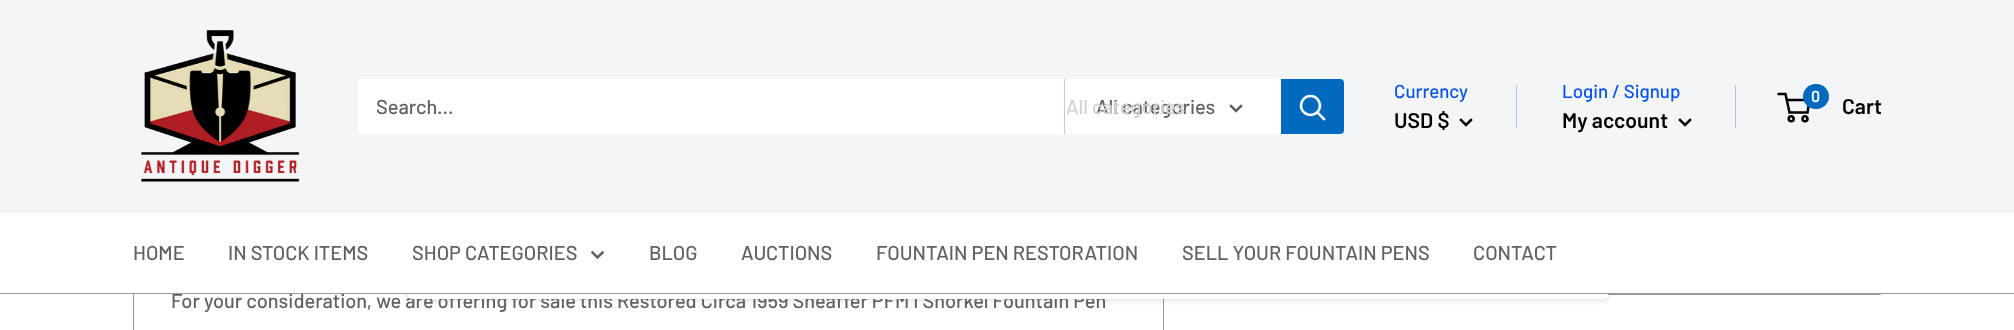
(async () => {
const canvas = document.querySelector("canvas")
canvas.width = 2014
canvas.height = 330
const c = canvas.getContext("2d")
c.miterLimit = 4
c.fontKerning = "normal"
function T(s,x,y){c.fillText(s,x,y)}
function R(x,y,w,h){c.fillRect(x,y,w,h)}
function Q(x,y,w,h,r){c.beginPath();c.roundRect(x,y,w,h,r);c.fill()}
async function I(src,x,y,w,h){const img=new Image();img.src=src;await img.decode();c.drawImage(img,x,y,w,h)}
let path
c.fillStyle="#fff"
R(0,0,2014,330)
c.beginPath()
c.roundRect(1201.5,-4.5,681,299,3.5)
c.strokeStyle="#999"
c.stroke()
c.strokeRect(133.5,173.5,1030,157)
c.fillStyle="#0000001a"
c.filter="blur(2.5px)"
c.beginPath()
c.roundRect(406,204,1203,97,5)
c.fill()
c.filter="none"
c.font="500 20px Barlow"
c.fillStyle="#5f6264"
T("For your consideration, we are offering for sale this Restored Circa 1959 Sheaffer PFM I Snorkel Fountain Pen",171,308)
c.fillStyle="#fff"
Q(408,204,1200,95,4)
c.fillStyle="#f3f5f6"
R(0,0,2014,213)
await I("1.png",141,30,159,152)
c.fillStyle="#fff"
Q(358,79,986,55,4)
c.fillStyle="#5f6264"
T("Search...",376,114)
c.fillStyle="#b5cbf9"
R(1064,79,1,55)
c.fillStyle="#5f6264"
T("All categories",1096,114)
c.fillStyle="#d1d2d2"
T("All categories",1066,114)
path = new Path2D("M1241 106l-5 5l-5-5")
c.strokeStyle="#5f6264"
c.lineWidth=2.5
c.lineCap="square"
c.stroke(path)
c.fillStyle="#016abf"
c.beginPath()
c.roundRect(1281,79,63,55,[0,4,4,0])
c.fill()
path = new Path2D("M1324 119l-6.5-6.5")
c.strokeStyle="#fff"
c.stroke(path)
c.beginPath()
c.arc(1310.5,105.5,9.5,0,7)
c.stroke()
c.font="500 18.75px Barlow"
c.fillStyle="#0752ec"
T("Currency",1394,98)
c.font="600 21.25px Barlow"
c.fillStyle="#000"
T("USD $",1394,128)
path = new Path2D("M1471 120l-5 5l-5-5")
c.strokeStyle="#000"
c.stroke(path)
c.fillStyle="#acc4f3"
R(1516,85,1,43)
c.font="500 18.75px Barlow"
c.fillStyle="#0752ec"
T("Login / Signup",1562,98)
c.fillStyle="#acc4f3"
R(1735,85,1,43)
c.font="600 21.25px Barlow"
c.fillStyle="#000"
T("My account",1562,128)
path = new Path2D("M1690 120l-5 5l-5-5")
c.stroke(path)
c.beginPath()
c.arc(1791.2,118.8,2.5,0,7)
c.stroke()
c.beginPath()
c.arc(1805,118.8,2.5,0,7)
c.stroke()
path = new Path2D("M1786.5 100h23l-2 12.5h-18l-4-18.5h-8")
c.lineCap="butt"
c.stroke(path)
c.fillStyle="#016abf"
Q(1803,84,26,25,12.5)
c.font="600 16px Barlow"
c.fillStyle="#fff"
T("0",1811,102)
c.font="600 21.25px Barlow"
c.fillStyle="#000"
T("Cart",1842,114)
c.fillStyle="#fff"
R(133,213,1750,80)
c.fillStyle="#999"
R(0,293,2014,1)
c.font="500 20px Barlow"
c.fillStyle="#5f6264"
T("HOME",133,260)
T("IN STOCK ITEMS",228,260)
T("SHOP CATEGORIES",412,260)
path = new Path2D("M602.5 252.5l-5 5l-5-5")
c.strokeStyle="#5f6264"
c.lineCap="square"
c.stroke(path)
T("BLOG",649,260)
T("AUCTIONS",741,260)
T("FOUNTAIN PEN RESTORATION",876,260)
T("SELL YOUR FOUNTAIN PENS",1182,260)
T("CONTACT",1473,260)
})()
